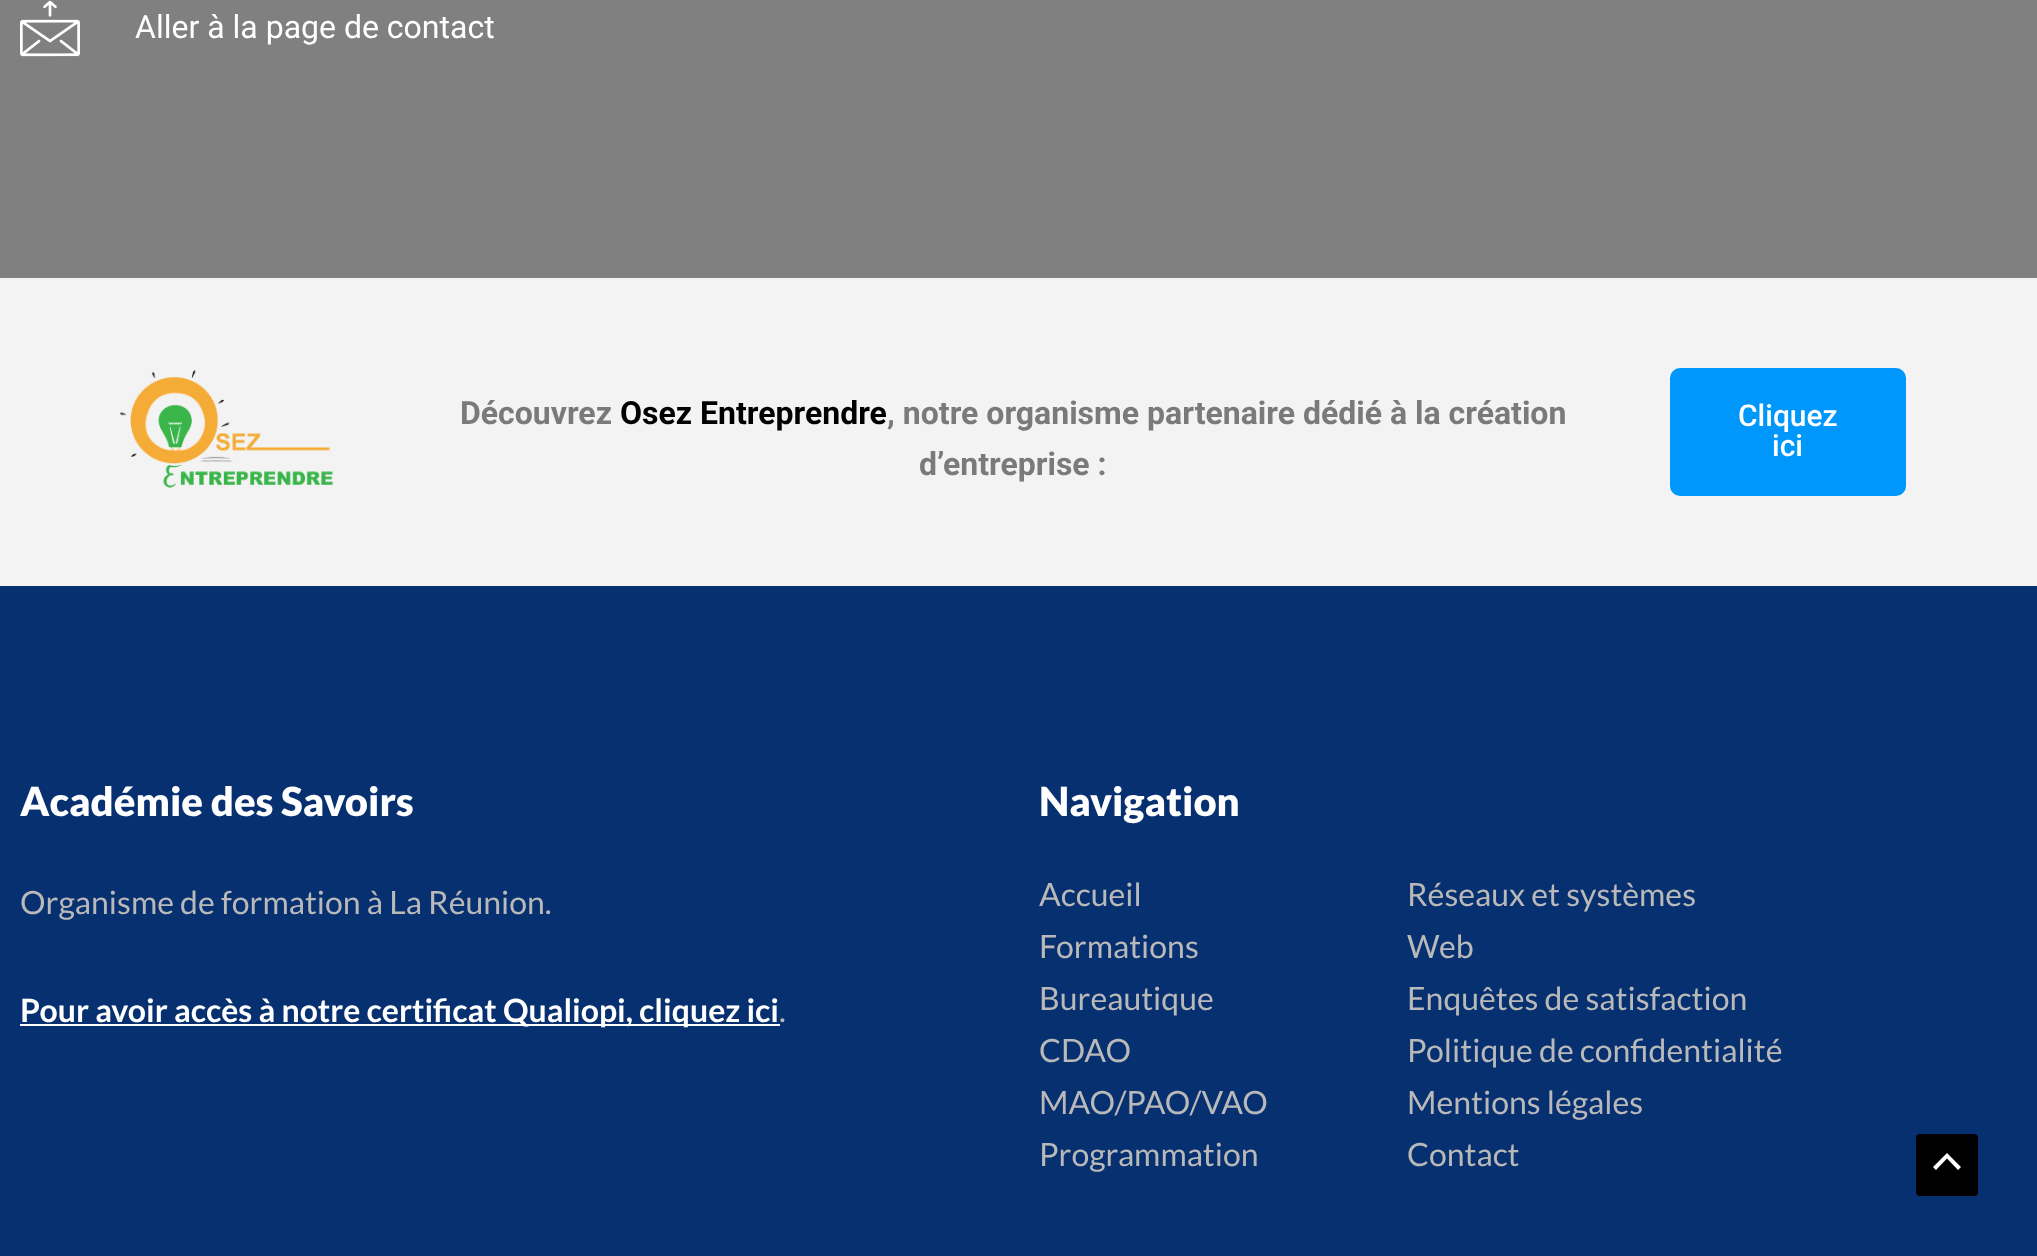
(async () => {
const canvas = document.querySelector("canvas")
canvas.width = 2037
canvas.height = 1256
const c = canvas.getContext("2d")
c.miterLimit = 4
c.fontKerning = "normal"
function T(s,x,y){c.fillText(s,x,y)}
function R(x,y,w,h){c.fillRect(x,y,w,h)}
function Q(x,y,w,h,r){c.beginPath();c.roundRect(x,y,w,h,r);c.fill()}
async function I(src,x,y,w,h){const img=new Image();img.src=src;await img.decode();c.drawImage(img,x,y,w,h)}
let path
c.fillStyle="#808080"
R(0,0,2037,1256)
await I("1.png",20,0,60,57)
c.font="32px Roboto"
c.fillStyle="#fff"
T("Aller à la page de contact",135,38)
c.fillStyle="#f3f3f3"
R(0,278,2037,308)
await I("2.png",120,370,214,118)
c.font="bold 32px Roboto"
c.fillStyle="#7a7a7a"
T("Découvrez",460,424)
c.fillStyle="#000"
T("Osez Entreprendre",620,424)
c.fillStyle="#7a7a7a"
T(", notre organisme partenaire dédié à la création",887,424)
T("d’entreprise :",919,475)
c.fillStyle="#0097fc"
Q(1670,368,236,128,10)
c.font="500 30px Roboto"
c.fillStyle="#fff"
T("Cliquez",1738,426)
T("ici",1772,456)
c.fillStyle="#073070"
R(0,586,2037,670)
c.font="900 40px Lato"
c.fillStyle="#fff"
T("Académie des Savoirs",20,816)
c.font="32px Lato"
c.fillStyle="#b9b9b9"
T("Organisme de formation à La Réunion.",20,914)
c.fillStyle="#fff"
R(20,1024,760,2)
c.font="bold 32px Lato"
T("Pour avoir accès à notre certificat Qualiopi, cliquez ici",20,1022)
c.font="32px Lato"
c.fillStyle="#b9b9b9"
T(".",779,1022)
c.font="900 40px Lato"
c.fillStyle="#fff"
T("Navigation",1039,816)
c.font="32px Lato"
c.fillStyle="#b9b9b9"
T("Accueil",1039,906)
T("Formations",1039,958)
T("Bureautique",1039,1010)
T("CDAO",1039,1062)
T("MAO/PAO/VAO",1039,1114)
T("Programmation",1039,1166)
T("Réseaux et systèmes",1407,906)
T("Web",1407,958)
T("Enquêtes de satisfaction",1407,1010)
T("Politique de confidentialité",1407,1062)
T("Mentions légales",1407,1114)
T("Contact",1407,1166)
c.fillStyle="#000"
Q(1916,1134,62,62,4)
c.fillStyle="#fff"
path = new Path2D("M1961 1167l-14-14l-14 14l3 3l11-11.5l11 11.5z")
c.fill(path)
})()
